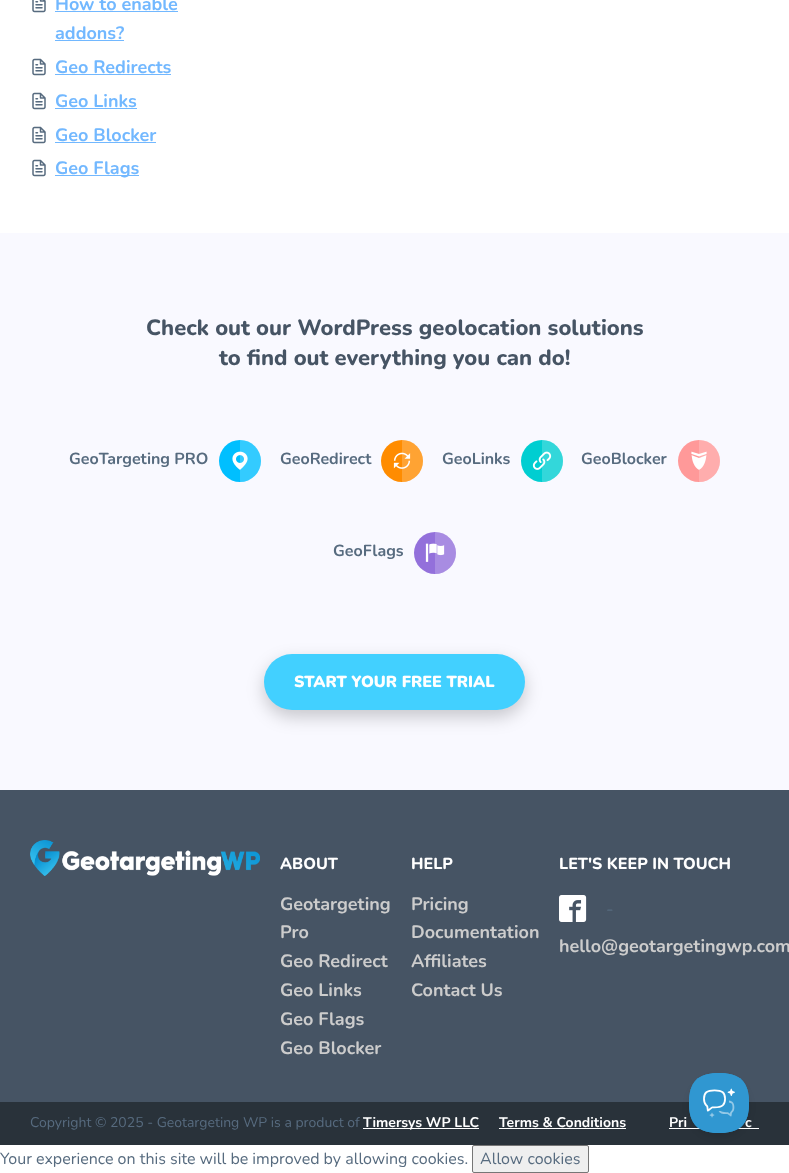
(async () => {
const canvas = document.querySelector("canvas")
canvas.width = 789
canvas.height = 1173
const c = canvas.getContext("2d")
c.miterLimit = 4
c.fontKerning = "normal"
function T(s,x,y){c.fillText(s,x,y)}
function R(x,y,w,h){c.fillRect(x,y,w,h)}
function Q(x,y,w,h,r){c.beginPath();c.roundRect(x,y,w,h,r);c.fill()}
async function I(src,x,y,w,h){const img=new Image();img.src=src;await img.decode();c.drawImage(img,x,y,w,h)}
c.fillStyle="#fff"
R(0,0,789,1173)
await I("1.png",32,0,14,13)
c.font="bold 18px Nunito"
c.fillStyle="#72b8ff"
T("How to enable",55,10)
R(55,11,123,1)
T("addons?",55,39)
R(55,40,69,1)
await I("2.png",32,58,14,18)
T("Geo Redirects",55,73)
R(55,74,116,1)
await I("2.png",32,92,14,18)
T("Geo Links",55,107)
R(55,108,82,1)
await I("2.png",32,126,14,18)
T("Geo Blocker",55,141)
R(55,142,101,1)
await I("2.png",32,159,14,18)
R(55,175,84,1)
T("Geo Flags",55,174)
c.fillStyle="#f9f9ff"
R(0,233,789,557)
c.font="800 22px Nunito"
c.fillStyle="#465464"
T("Check out our WordPress geolocation solutions",146,335)
T("to find out everything you can do!",219,365)
c.font="bold 16px Nunito"
c.fillStyle="#576b7f"
T("GeoTargeting PRO",69,464)
c.fillStyle="#00bfff"
c.beginPath()
c.arc(240,461,21,0,7)
c.fill()
await I("3.png",232,451,16,19)
c.fillStyle="#ffffff33"
c.beginPath()
c.roundRect(240,440,21,42,[0,21,21,0])
c.fill()
c.fillStyle="#576b7f"
T("GeoRedirect",280,464)
c.fillStyle="#ff8c00"
c.beginPath()
c.arc(402,461,21,0,7)
c.fill()
await I("4.png",393,452,18,17)
c.fillStyle="#ffffff33"
c.beginPath()
c.roundRect(402,440,21,42,[0,21,21,0])
c.fill()
c.fillStyle="#576b7f"
T("GeoLinks",442,464)
c.fillStyle="#00ced1"
c.beginPath()
c.arc(542,461,21,0,7)
c.fill()
await I("5.png",532,451,20,19)
c.fillStyle="#ffffff33"
c.beginPath()
c.roundRect(542,440,21,42,[0,21,21,0])
c.fill()
c.fillStyle="#576b7f"
T("GeoBlocker",581,464)
c.fillStyle="#f99"
c.beginPath()
c.arc(699,461,21,0,7)
c.fill()
await I("6.png",691,451,16,19)
c.fillStyle="#ffffff33"
c.beginPath()
c.roundRect(699,440,21,42,[0,21,21,0])
c.fill()
c.fillStyle="#576b7f"
T("GeoFlags",333,556)
c.fillStyle="#9370db"
c.beginPath()
c.arc(435,553,21,0,7)
c.fill()
await I("7.png",425,543,20,19)
c.fillStyle="#ffffff33"
c.beginPath()
c.roundRect(435,532,21,42,[0,21,21,0])
c.fill()
c.fillStyle="#00000033"
c.filter="blur(8.5px)"
c.beginPath()
c.roundRect(264,661,261,56,28)
c.fill()
c.filter="none"
c.fillStyle="#42d0ff"
Q(264,654,261,56,28)
c.font="900 16px Nunito"
c.fillStyle="#fff"
T("START YOUR FREE TRIAL",294,687)
c.fillStyle="#465464"
R(0,790,789,312)
await I("8.png",30,840,230,36)
c.font="800 16px Nunito"
c.fillStyle="#fff"
T("ABOUT",280,869)
c.font="bold 18px Nunito"
c.fillStyle="#ccc"
T("Geotargeting",280,910)
T("Pro",280,938)
T("Geo Redirect",280,967)
T("Geo Links",280,996)
T("Geo Flags",280,1025)
T("Geo Blocker",280,1054)
c.font="800 16px Nunito"
c.fillStyle="#fff"
T("HELP",411,869)
c.font="bold 18px Nunito"
c.fillStyle="#ccc"
T("Pricing",411,910)
T("Documentation",411,938)
T("Affiliates",411,967)
T("Contact Us",411,996)
c.font="800 16px Nunito"
c.fillStyle="#fff"
T("LET'S KEEP IN TOUCH",559,869)
await I("9.png",559,895,28,27)
c.font="18px Nunito"
c.fillStyle="#576b7f"
T("-",606,915)
c.font="bold 18px Nunito"
c.fillStyle="#ccc"
T("hello@geotargetingwp.com",559,952)
c.fillStyle="#29323a"
R(0,1102,789,43)
c.font="14px Nunito"
c.fillStyle="#576b7f"
T("Copyright © 2025 - Geotargeting WP is a product of",30,1127)
c.fillStyle="#fff"
R(363,1128,116,1)
c.font="bold 14px Nunito"
T("Timersys WP LLC",363,1127)
T("Terms & Conditions",499,1127)
R(499,1128,127,1)
T("Pri",669,1127)
T("c",745,1127)
R(669,1128,90,1)
c.fillStyle="#0000001a"
c.filter="blur(3.5px)"
c.beginPath()
c.roundRect(689,1077,60,60,30)
c.fill()
c.filter="none"
await I("10.png",689,1073,60,60)
c.font="16px Nunito"
c.fillStyle="#576b7f"
T("Your experience on this site will be improved by allowing cookies.",0,1164)
c.fillStyle="#efefef"
c.beginPath()
c.roundRect(472.5,1145.5,116,27,1.5)
c.fill()
c.strokeStyle="#767676"
c.stroke()
c.fillStyle="#576b7f"
T("Allow cookies",480,1164)
})()
